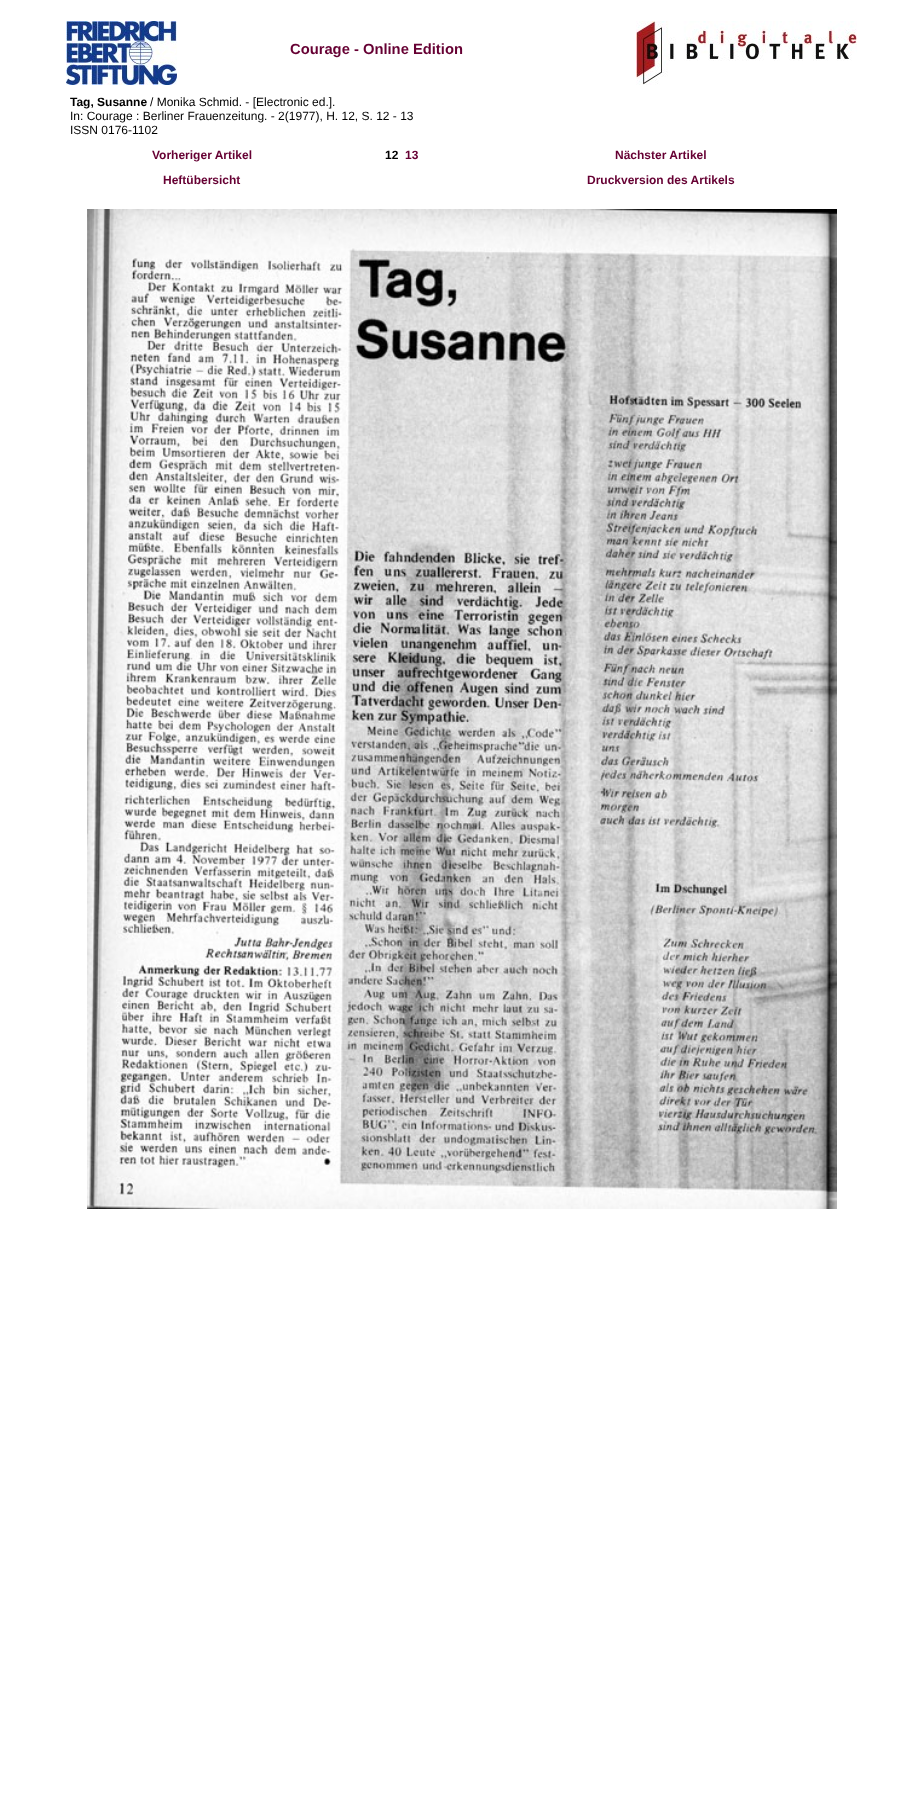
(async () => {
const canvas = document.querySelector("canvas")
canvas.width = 923
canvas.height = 1817
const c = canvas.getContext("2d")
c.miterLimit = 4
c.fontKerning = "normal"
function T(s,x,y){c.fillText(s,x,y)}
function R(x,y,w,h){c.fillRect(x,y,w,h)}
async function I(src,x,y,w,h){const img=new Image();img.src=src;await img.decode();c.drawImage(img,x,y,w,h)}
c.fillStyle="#fff"
R(0,0,923,1817)
await I("1.png",66,21,111,64)
c.font="bold 14.75px Liberation Sans"
c.fillStyle="#603"
T("Courage - Online Edition",290,54)
await I("2.png",636,21,221,64)
c.font="bold 12px Liberation Sans"
c.fillStyle="#000"
T("Tag, Susanne",70,106)
c.font="12px Liberation Sans"
T("/ Monika Schmid. - [Electronic ed.].",150,106)
T("In: Courage : Berliner Frauenzeitung. - 2(1977), H. 12, S. 12 - 13",70,120)
T("ISSN 0176-1102",70,134)
c.font="bold 12px Liberation Sans"
c.fillStyle="#603"
T("Vorheriger Artikel",152,159)
c.fillStyle="#000"
T("12",385,159)
c.fillStyle="#603"
T("13",405,159)
T("Nächster Artikel",615,159)
T("Heftübersicht",163,184)
T("Druckversion des Artikels",587,184)
await I("3.png",87,209,750,1000)
})()
